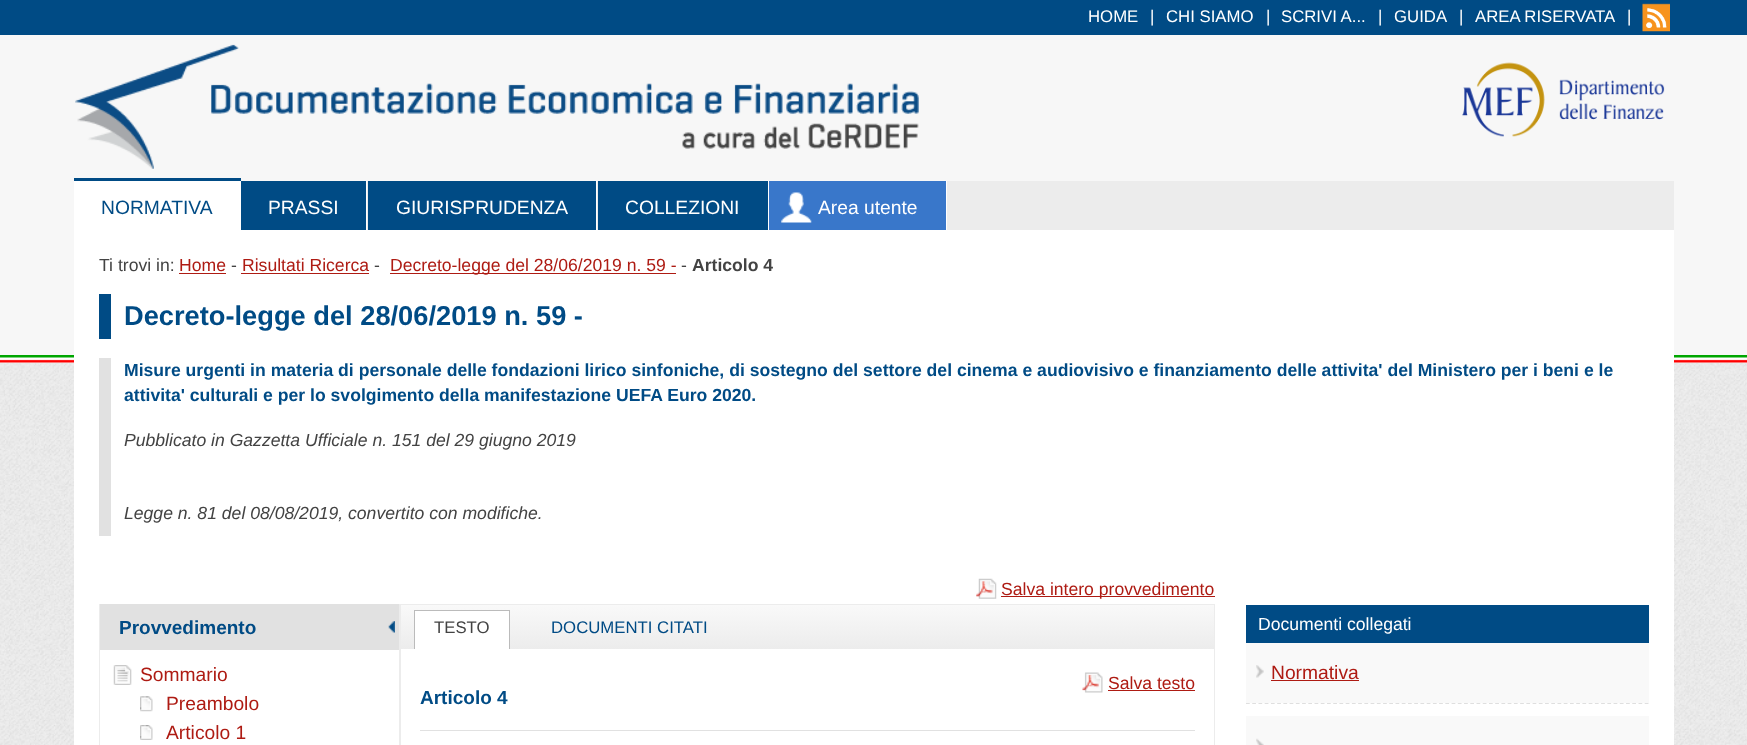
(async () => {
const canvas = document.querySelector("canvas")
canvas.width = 1747
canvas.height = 745
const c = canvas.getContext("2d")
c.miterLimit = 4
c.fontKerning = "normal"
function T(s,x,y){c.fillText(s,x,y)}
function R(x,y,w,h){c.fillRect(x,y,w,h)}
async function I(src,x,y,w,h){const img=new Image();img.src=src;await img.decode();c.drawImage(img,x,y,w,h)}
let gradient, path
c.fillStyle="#fff"
R(0,0,1747,745)
await I("1.png",0,363,1747,382)
c.fillStyle="#004b85"
R(0,0,1747,35)
c.font="16.75px Liberation Sans"
c.fillStyle="#fff"
T("HOME",1088,22)
T("|",1150,22)
T("CHI SIAMO",1166,22)
T("|",1266,22)
T("SCRIVI A...",1281,22)
T("|",1378,22)
T("GUIDA",1394,22)
T("|",1459,22)
T("AREA RISERVATA",1475,22)
T("|",1627,22)
await I("2.png",1642,3,28,29)
c.fillStyle="#f7f7f7"
R(0,35,1747,328)
await I("3.png",75,44,844,125)
await I("4.png",1462,62,203,75)
await I("5.png",0,355,1747,8)
c.fillStyle="#ececec"
R(367,181,1307,49)
c.fillStyle="#004b85"
R(74,178,167,3)
c.fillStyle="#fff"
R(74,181,167,49)
c.font="19.25px Liberation Sans"
c.fillStyle="#004b85"
T("NORMATIVA",101,214)
c.fillStyle="#fff"
R(366,181,1,53)
c.fillStyle="#004b85"
R(241,181,125,49)
c.fillStyle="#fff"
T("PRASSI",268,214)
R(596,181,1,53)
c.fillStyle="#004b85"
R(368,181,228,49)
c.fillStyle="#fff"
T("GIURISPRUDENZA",396,214)
R(768,181,1,53)
c.fillStyle="#004b85"
R(598,181,170,49)
c.fillStyle="#fff"
T("COLLEZIONI",625,214)
R(946,181,1,53)
c.fillStyle="#3977ca"
R(769,181,177,49)
await I("6.png",781,192,31,31)
c.fillStyle="#fff"
T("Area utente",818,214)
R(74,230,1600,515)
c.font="17.6px Liberation Sans"
c.fillStyle="#434343"
T("Ti trovi in:",99,271)
c.fillStyle="#ae1b13"
T("Home",179,271)
R(179,273,47,1)
c.fillStyle="#434343"
T("-",231,271)
c.fillStyle="#ae1b13"
T("Risultati Ricerca",242,271)
R(241,273,128,1)
c.fillStyle="#434343"
T("-",374,271)
c.fillStyle="#ae1b13"
R(390,273,286,1)
T("Decreto-legge del 28/06/2019 n. 59 -",390,271)
c.fillStyle="#434343"
T("-",681,271)
c.font="bold 17.6px Liberation Sans"
T("Articolo 4",692,271)
c.fillStyle="#004b85"
R(99,294,12,45)
c.font="bold 27.25px Liberation Sans"
T("Decreto-legge del 28/06/2019 n. 59 -",124,325)
c.fillStyle="#e1e1e1"
R(99,358,12,178)
c.font="bold 17.6px Liberation Sans"
c.fillStyle="#004b85"
T("Misure urgenti in materia di personale delle fondazioni lirico sinfoniche, di sostegno del settore del cinema e audiovisivo e finanziamento delle attivita' del Ministero per i beni e le",124,376)
T("attivita' culturali e per lo svolgimento della manifestazione UEFA Euro 2020.",124,401)
c.font="italic 17.6px Liberation Sans"
c.fillStyle="#434343"
T("Pubblicato in Gazzetta Ufficiale n. 151 del 29 giugno 2019",124,446)
T("Legge n. 81 del 08/08/2019, convertito con modifiche.",124,519)
await I("7.png",976,578,21,21)
c.fillStyle="#ae1b13"
R(1001,596,214,1)
c.font="17.6px Liberation Sans"
T("Salva intero provvedimento",1001,595)
c.strokeStyle="#ececec"
c.strokeRect(99.5,604.5,300,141)
c.fillStyle="#e1e1e1"
R(100,604,299,46)
c.font="bold 19px Liberation Sans"
c.fillStyle="#004b85"
T("Provvedimento",119,634)
await I("8.png",388,621,7,12)
await I("9.png",113,665,19,20)
c.font="19.25px Liberation Sans"
c.fillStyle="#ae1b13"
T("Sommario",140,681)
await I("10.png",140,696,13,16)
T("Preambolo",166,710)
await I("11.png",140,725,13,15)
T("Articolo 1",166,739)
c.strokeRect(400.5,604.5,814,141)
gradient = c.createLinearGradient(808,605,808,649)
gradient.addColorStop(0,"#f9f9f9")
gradient.addColorStop(1,"#ececec")
c.fillStyle = gradient
R(401,605,813,44)
c.fillStyle="#fff"
R(415,611,94,38)
c.font="16.75px Liberation Sans"
c.fillStyle="#434343"
T("TESTO",434,633)
c.fillStyle="#bbb"
R(414,610,96,1)
R(509,610,1,39)
R(414,610,1,39)
await I("12.png",1082,672,21,21)
c.font="17.6px Liberation Sans"
c.fillStyle="#ae1b13"
T("Salva testo",1108,689)
R(1108,690,87,1)
c.font="bold 19px Liberation Sans"
c.fillStyle="#004b85"
T("Articolo 4",420,704)
c.fillStyle="#e1e1e1"
R(420,730,775,1)
c.font="16.75px Liberation Sans"
c.fillStyle="#004b85"
T("DOCUMENTI CITATI",551,633)
R(1246,605,403,38)
c.font="17.6px Liberation Sans"
c.fillStyle="#fff"
T("Documenti collegati",1258,630)
path = new Path2D("M1246 703h403")
c.strokeStyle="#bfbfbf"
c.lineWidth=1.2
c.setLineDash([3.75,2.48])
c.stroke(path)
c.fillStyle="#f9f9f9"
R(1246,643,403,60)
await I("13.png",1256,665,8,13)
c.font="19.25px Liberation Sans"
c.fillStyle="#ae1b13"
T("Normativa",1271,679)
R(1271,680,88,1)
c.fillStyle="#f9f9f9"
R(1246,716,403,29)
await I("14.png",1256,738,8,7)
})()
